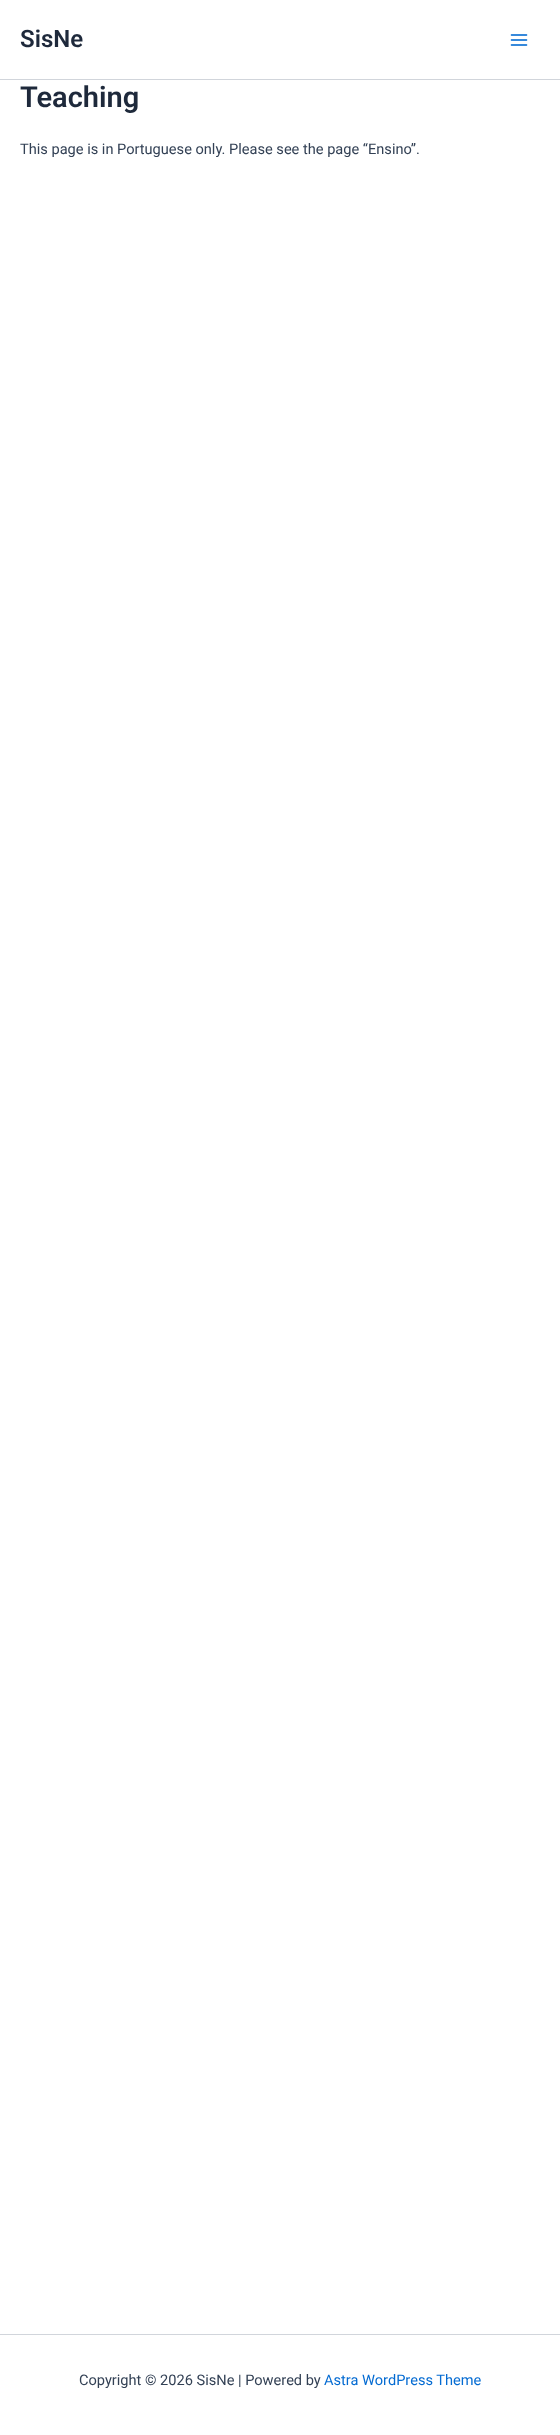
(async () => {
const canvas = document.querySelector("canvas")
canvas.width = 560
canvas.height = 2435
const c = canvas.getContext("2d")
c.miterLimit = 4
c.fontKerning = "normal"
function T(s,x,y){c.fillText(s,x,y)}
function R(x,y,w,h){c.fillRect(x,y,w,h)}
async function I(src,x,y,w,h){const img=new Image();img.src=src;await img.decode();c.drawImage(img,x,y,w,h)}
c.fillStyle="#fff"
R(0,0,560,2435)
c.fillStyle="#d1d5db"
R(0,79,560,1)
c.font="600 24px Roboto"
c.fillStyle="#1e293b"
T("SisNe",20,47)
await I("1.png",510,34,18,12)
c.font="600 29px Roboto"
T("Teaching",20,107)
c.font="14.6px Roboto"
c.fillStyle="#334155"
T("This page is in Portuguese only. Please see the page “Ensino”.",20,154)
c.fillStyle="#d1d5db"
R(0,2334,560,1)
c.fillStyle="#334155"
T("Copyright © 2026 SisNe | Powered by",79,2385)
c.fillStyle="#046bd2"
T("Astra WordPress Theme",324,2385)
})()
